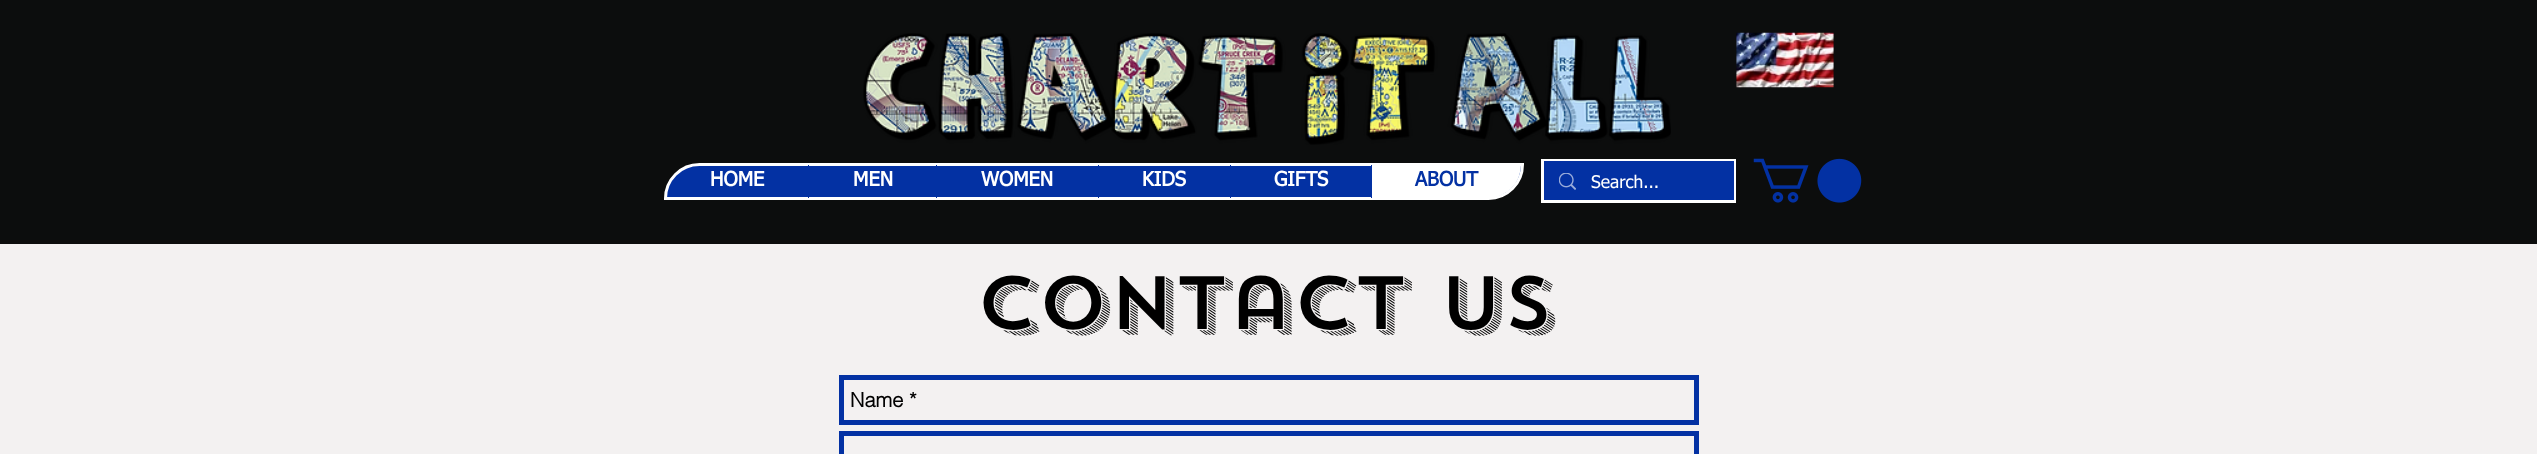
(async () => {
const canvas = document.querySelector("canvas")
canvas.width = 2537
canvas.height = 454
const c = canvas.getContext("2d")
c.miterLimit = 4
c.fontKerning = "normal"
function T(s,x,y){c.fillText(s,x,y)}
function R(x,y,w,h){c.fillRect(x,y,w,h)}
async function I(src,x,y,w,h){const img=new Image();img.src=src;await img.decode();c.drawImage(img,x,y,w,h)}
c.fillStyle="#0c0d0d"
R(0,0,2537,454)
await I("1.png",863,33,808,112)
await I("2.png",1736,32,98,56)
c.fillStyle="#0331a3"
c.beginPath()
c.roundRect(665.5,164.5,857,34,[35.5,0,35.5,0])
c.fill()
c.strokeStyle="#fff"
c.lineWidth=3
c.stroke()
c.font="bold 20px tahoma"
c.fillStyle="#fff"
T("HOME",710,186)
c.fillStyle="#0331a3"
R(808,165,1,33)
c.fillStyle="#fff"
T("MEN",853,186)
c.fillStyle="#0331a3"
R(936,165,1,33)
c.fillStyle="#fff"
T("WOMEN",981,186)
c.fillStyle="#0331a3"
R(1098,165,1,33)
c.fillStyle="#fff"
T("KIDS",1142,186)
c.fillStyle="#0331a3"
R(1230,165,1,33)
c.fillStyle="#fff"
T("GIFTS",1274,186)
c.beginPath()
c.roundRect(1371,165,150,33,[0,0,33,0])
c.fill()
c.fillStyle="#0331a3"
R(1371,165,1,33)
T("ABOUT",1415,186)
c.strokeRect(1542.5,160.5,192,41)
R(1544,161,190,39)
await I("3.png",1559,173,17,17)
c.font="17.5px tahoma"
c.fillStyle="#fff"
T("Search...",1591,188)
await I("4.png",1753,158,109,45)
c.fillStyle="#f3f1f1"
R(0,244,2537,210)
c.font="500 75px 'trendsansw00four'"
c.fillStyle="#000"
T("Contact Us",976,329)
c.strokeStyle="#0331a3"
c.lineWidth=5
c.strokeRect(841.5,377.5,855,45)
c.font="bold 20px helvetica"
T("Name *",850,407)
c.strokeRect(841.5,433.5,855,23)
})()
